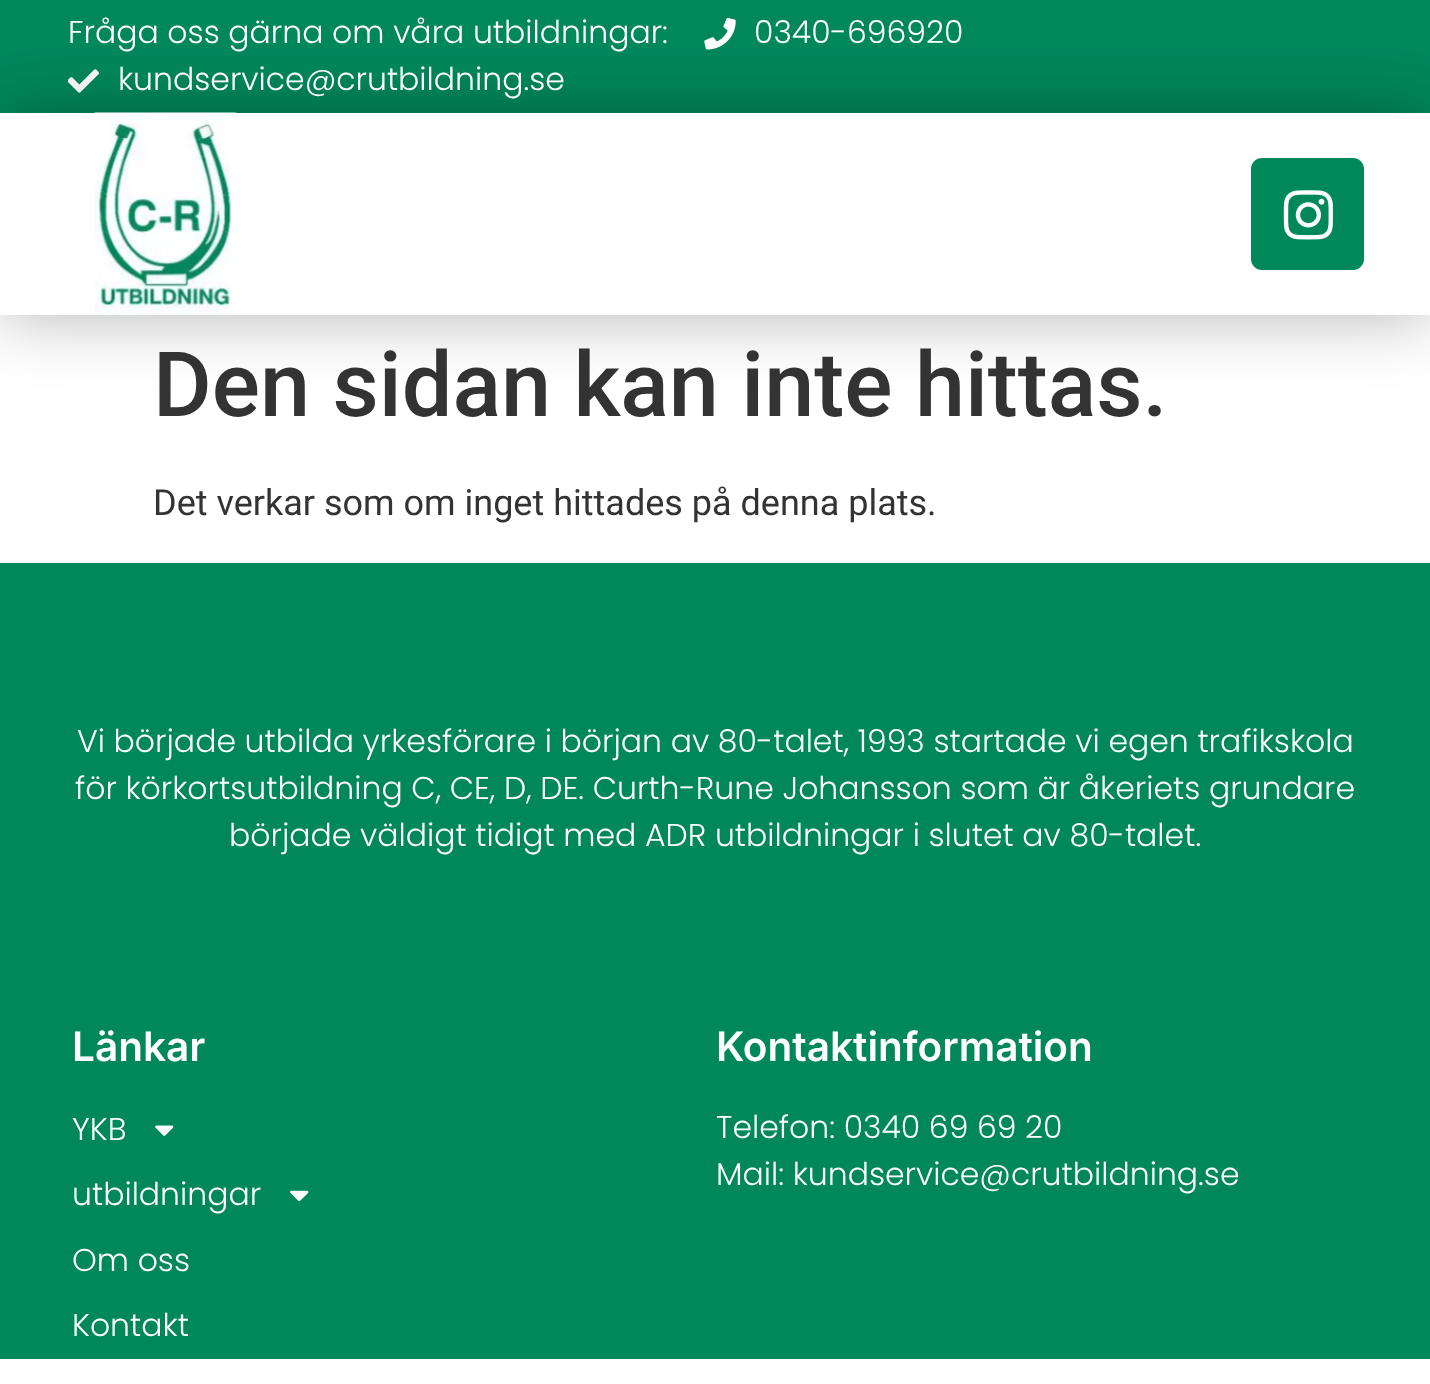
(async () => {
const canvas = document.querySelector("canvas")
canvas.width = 1430
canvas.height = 1384
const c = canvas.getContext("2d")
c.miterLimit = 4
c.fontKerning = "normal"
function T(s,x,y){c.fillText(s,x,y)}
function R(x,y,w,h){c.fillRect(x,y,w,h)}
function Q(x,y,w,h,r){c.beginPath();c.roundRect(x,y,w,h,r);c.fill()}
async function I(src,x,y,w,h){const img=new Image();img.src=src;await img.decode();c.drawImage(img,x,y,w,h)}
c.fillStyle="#fff"
R(0,0,1430,1384)
c.fillStyle="#00885b"
R(0,0,1430,113)
await I("3.png",704,18,32,32)
await I("4.png",68,69,31,24)
c.fillStyle="#0000004d"
c.filter="blur(34px)"
c.beginPath()
c.rect(0,113,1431,202)
c.fill()
c.filter="none"
c.fillStyle="#fff"
R(0,113,1430,202)
await I("1.png",94,112,143,203)
c.fillStyle="#00885b"
Q(1251,158,113,112,11)
await I("2.png",1283,190,50,50)
c.font="300 31.5px Poppins"
c.fillStyle="#fff"
T("Fråga oss gärna om våra utbildningar:",68,43)
T("0340-696920",754,43)
T("kundservice@crutbildning.se",118,90)
c.font="500 90px Roboto"
c.fillStyle="#333"
T("Den sidan kan inte hittas.",153,416)
c.font="36px Roboto"
T("Det verkar som om inget hittades på denna plats.",153,515)
c.fillStyle="#00885b"
R(0,563,1430,796)
c.font="300 31.5px Poppins"
c.fillStyle="#fff"
T("Vi började utbilda yrkesförare i början av 80-talet, 1993 startade vi egen trafikskola",77,752)
T("för körkortsutbildning C, CE, D, DE. Curth-Rune Johansson som är åkeriets grundare",75,799)
T("började väldigt tidigt med ADR utbildningar i slutet av 80-talet.",229,846)
c.font="600 40.5px Inter"
T("Länkar",72,1061)
c.font="300 31.5px Poppins"
T("YKB",72,1140)
await I("5.png",155,1125,19,11)
T("utbildningar",72,1205)
await I("6.png",290,1190,19,12)
T("Om oss",72,1271)
T("Kontakt",72,1336)
c.font="600 40.5px Inter"
T("Kontaktinformation",716,1061)
c.font="300 31.5px Poppins"
T("Telefon: 0340 69 69 20",716,1138)
T("Mail: kundservice@crutbildning.se",716,1185)
})()
